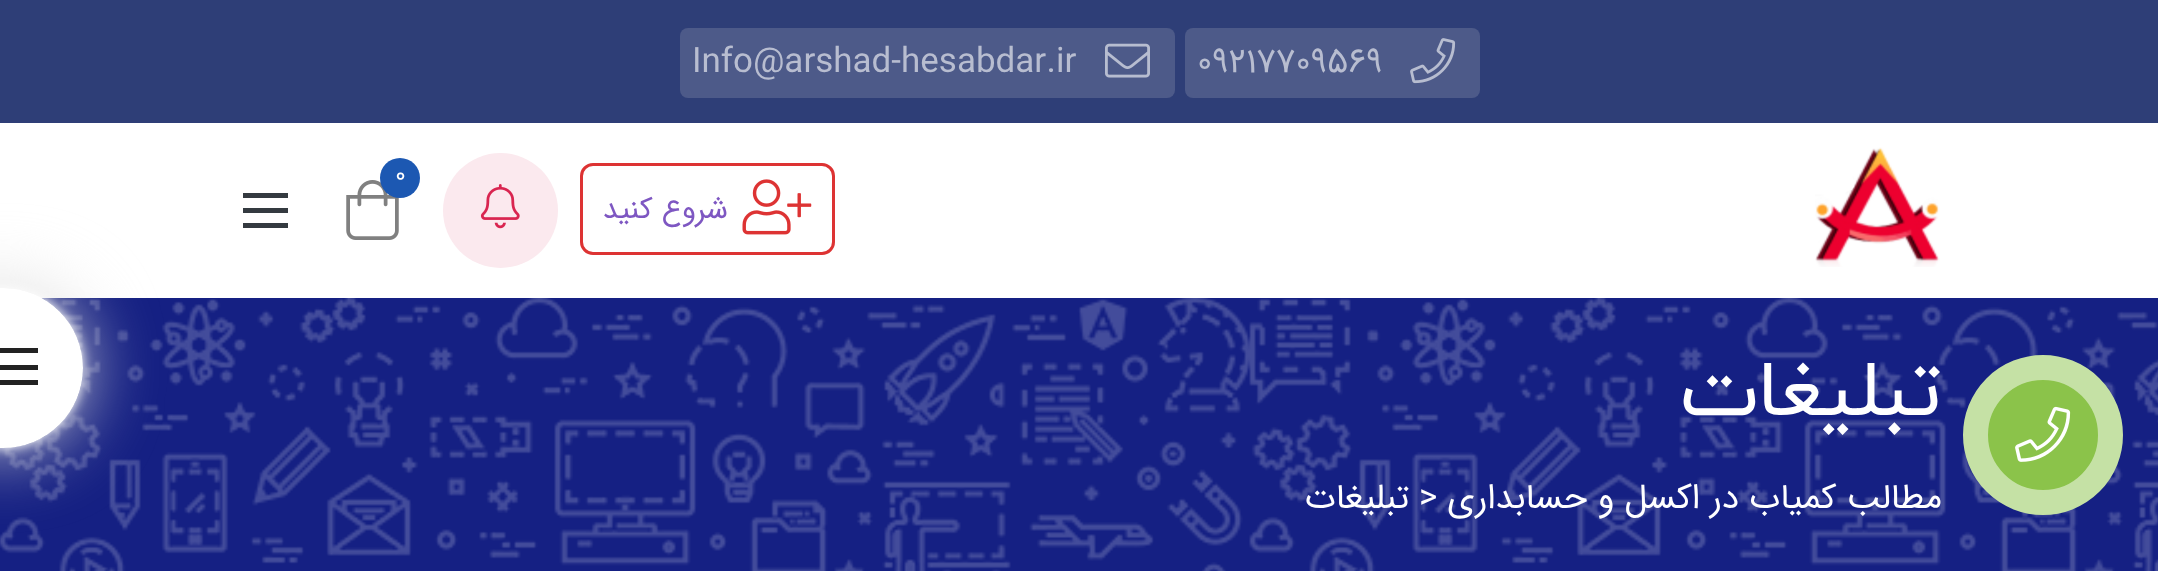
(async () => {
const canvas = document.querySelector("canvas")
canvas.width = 2158
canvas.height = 571
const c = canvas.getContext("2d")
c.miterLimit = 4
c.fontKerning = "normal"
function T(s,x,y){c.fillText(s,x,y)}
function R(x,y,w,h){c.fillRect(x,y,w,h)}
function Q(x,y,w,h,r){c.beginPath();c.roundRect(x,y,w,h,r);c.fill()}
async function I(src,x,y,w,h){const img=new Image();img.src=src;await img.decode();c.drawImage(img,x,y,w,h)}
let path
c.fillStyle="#152083"
R(0,0,2158,571)
await I("8.png",0,298,2158,273)
c.fillStyle="#8bc34a"
c.beginPath()
c.arc(2043,435,67.5,0,7)
c.fill()
c.strokeStyle="#c5e1a5"
c.lineWidth=25
c.stroke()
await I("1.png",2015,406,56,56)
c.fillStyle="#2e3e77"
R(0,0,2158,123)
c.fillStyle="#4d5a89"
Q(1185,28,295,70,8)
await I("2.png",1410,38,46,46)
c.font="35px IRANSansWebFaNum"
c.fillStyle="#b8bdd0"
T("۰۹۲۱۷۷۰۹۵۶۹",1197,72)
c.fillStyle="#4d5a89"
Q(680,28,495,70,8)
await I("3.png",1105,43,45,35)
c.fillStyle="#b8bdd0"
T("Info@arshad-hesabdar.ir",692,72)
c.fillStyle="#fff"
R(0,123,2158,175)
await I("4.png",1815,147,125,120)
c.fillStyle="#fbe9ee"
c.beginPath()
c.arc(500.5,210.5,57.5,0,7)
c.fill()
await I("5.png",480,184,40,45)
await I("6.png",346,180,53,60)
c.fillStyle="#1c58b2"
c.beginPath()
c.arc(400,178,20,0,7)
c.fill()
c.font="25px IRANSansWebFaNum"
c.fillStyle="#fff"
T("0",395,182)
c.beginPath()
c.roundRect(581.5,164.5,252,89,11.5)
c.strokeStyle="#d33"
c.lineWidth=3
c.stroke()
await I("7.png",742,179,70,56)
c.direction="rtl"
c.font="30px IRANSansWebFaNum"
c.fillStyle="#7e57c2"
T("شروع کنید",728,218)
c.fillStyle="#343a40"
R(243,208,45,5)
R(243,193,45,5)
R(243,223,45,5)
c.font="80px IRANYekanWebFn"
c.fillStyle="#fff"
T("تبلیغات",1942,415)
c.font="35px IRANSansWebFaNum"
T("مطالب کمیاب در اکسل و حسابداری",1942,508)
c.direction="ltr"
T(">",1419,508)
c.direction="rtl"
T("تبلیغات",1409,508)
c.fillStyle="#dcdcdc"
c.filter="blur(37.5px)"
c.beginPath()
c.roundRect(-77,288,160,160,80)
c.fill()
c.filter="none"
c.fillStyle="#fff"
c.beginPath()
c.arc(3,368,80,0,7)
c.fill()
c.save()
path = new Path2D("M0 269h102v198h-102zm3 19c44 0 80 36 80 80c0 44-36 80-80 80c-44 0-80-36-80-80c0-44 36-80 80-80z")
c.clip(path,"evenodd")
c.filter="blur(6px)"
c.beginPath()
c.roundRect(-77,288,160,160,80)
c.fill()
c.filter="none"
c.restore()
c.fillStyle="#222"
R(0,348,38,5)
R(0,365,38,5)
R(0,380,38,5)
})()
